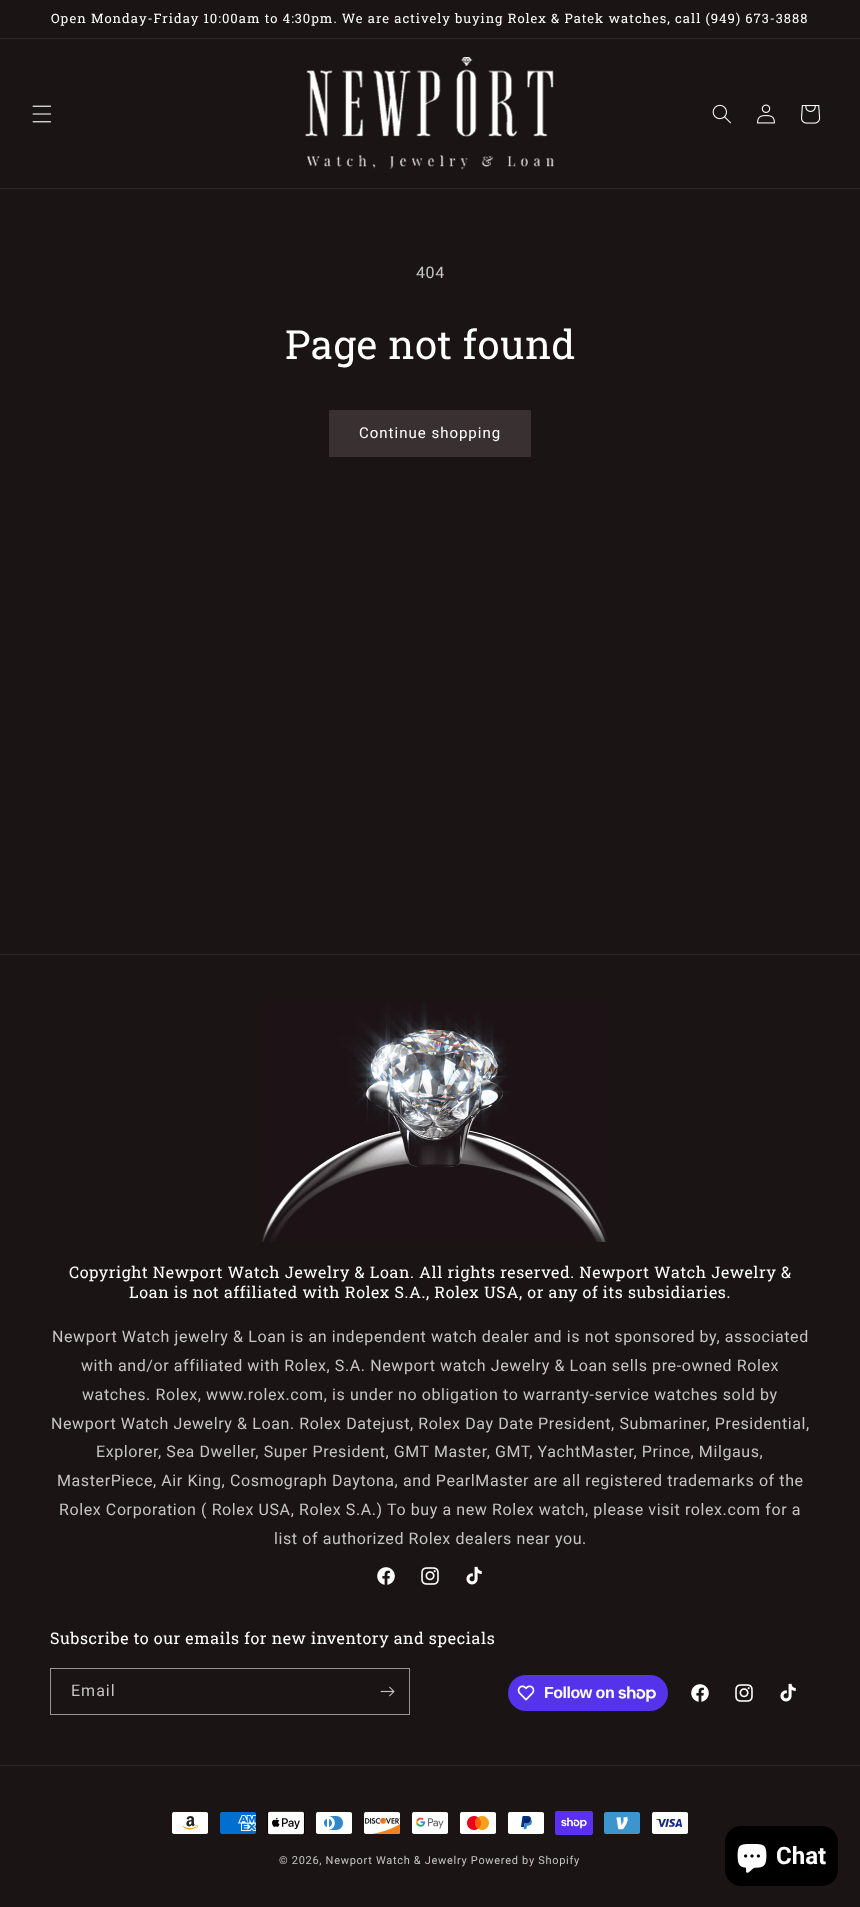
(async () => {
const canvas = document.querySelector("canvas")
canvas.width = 860
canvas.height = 1907
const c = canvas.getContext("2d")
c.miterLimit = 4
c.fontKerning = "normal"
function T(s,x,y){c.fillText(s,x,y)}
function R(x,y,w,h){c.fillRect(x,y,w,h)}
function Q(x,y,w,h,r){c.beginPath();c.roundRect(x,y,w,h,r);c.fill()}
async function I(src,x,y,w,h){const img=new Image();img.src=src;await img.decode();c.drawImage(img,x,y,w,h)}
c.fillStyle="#1b1415"
R(0,0,860,1907)
c.fillStyle="#2d2728"
R(0,38,860,1)
c.letterSpacing="1px"
c.font="13px Roboto Slab"
c.fillStyle="#fff"
T("Open Monday-Friday 10:00am to 4:30pm. We are actively buying Rolex & Patek watches, call (949) 673-3888",51,23)
c.fillStyle="#2d2728"
R(0,188,860,1)
await I("1.png",32,105,20,18)
await I("2.png",305,57,249,113)
await I("3.png",712,104,19,20)
await I("4.png",757,104,18,20)
await I("5.png",801,105,20,19)
c.letterSpacing="0.6px"
c.font="16px Roboto"
c.fillStyle="#c6c4c5"
T("404",416,278)
c.font="40px Roboto Slab"
c.fillStyle="#fff"
T("Page not found",285,359)
c.fillStyle="#393131"
R(329,410,202,47)
c.letterSpacing="1px"
c.font="15px Roboto"
c.fillStyle="#fff"
T("Continue shopping",359,438)
c.fillStyle="#2d2728"
R(0,954,860,1)
await I("6.png",261,1001,346,241)
c.letterSpacing="0.6px"
c.font="16px Roboto Slab"
c.fillStyle="#fff"
T("Copyright Newport Watch Jewelry & Loan. All rights reserved. Newport Watch Jewelry &",69,1278)
T("Loan is not affiliated with Rolex S.A., Rolex USA, or any of its subsidiaries.",129,1298)
c.font="16px Roboto"
c.fillStyle="#c6c4c5"
T("Newport Watch jewelry & Loan is an independent watch dealer and is not sponsored by, associated",52,1342)
T("with and/or affiliated with Rolex, S.A. Newport watch Jewelry & Loan sells pre-owned Rolex",81,1371)
T("watches. Rolex, www.rolex.com, is under no obligation to warranty-service watches sold by",82,1400)
T("Newport Watch Jewelry & Loan. Rolex Datejust, Rolex Day Date President, Submariner, Presidential,",51,1429)
T("Explorer, Sea Dweller, Super President, GMT Master, GMT, YachtMaster, Prince, Milgaus,",96,1457)
T("MasterPiece, Air King, Cosmograph Daytona, and PearlMaster are all registered trademarks of the",57,1486)
T("Rolex Corporation ( Rolex USA, Rolex S.A.) To buy a new Rolex watch, please visit rolex.com for a",59,1515)
T("list of authorized Rolex dealers near you.",274,1544)
await I("7.png",377,1567,18,18)
await I("8.png",421,1567,18,18)
await I("9.png",466,1566,16,19)
c.font="16px Roboto Slab"
c.fillStyle="#fff"
T("Subscribe to our emails for new inventory and specials",50,1644)
c.strokeStyle="#989596"
c.strokeRect(50.5,1668.5,359,46)
c.letterSpacing="1px"
c.font="16px Roboto"
c.fillStyle="#c6c4c5"
T("Email",71,1696)
await I("10.png",380,1686,15,11)
c.fillStyle="#5433eb"
Q(508,1675,160,36,18)
await I("11.png",517,1685,18,16)
c.letterSpacing="-0.5px"
c.font="bold 16px Liberation Sans"
c.fillStyle="#fff"
T("Follow on",544,1698)
await I("12.png",618,1686,38,16)
await I("7.png",691,1684,18,18)
await I("8.png",735,1684,18,18)
await I("9.png",780,1683,16,19)
c.fillStyle="#2d2728"
R(0,1765,860,1)
await I("13.png",172,1812,36,22)
await I("14.png",220,1812,36,22)
await I("15.png",267,1811,38,24)
await I("16.png",316,1812,36,22)
await I("17.png",364,1812,36,22)
await I("18.png",412,1812,36,22)
await I("19.png",460,1812,36,22)
await I("20.png",508,1812,36,22)
await I("21.png",555,1811,38,24)
await I("22.png",604,1812,36,22)
await I("23.png",652,1812,36,22)
c.letterSpacing="0.7px"
c.font="11px Roboto"
c.fillStyle="#c6c4c5"
T("© 2026, Newport Watch & Jewelry Powered by Shopify",279,1864)
c.fillStyle="#000"
Q(725,1826,113,60,16)
await I("24.png",737,1844,30,29)
c.letterSpacing="0px"
c.font="bold 24px Roboto"
c.fillStyle="#fff"
T("Chat",776,1864)
})()
